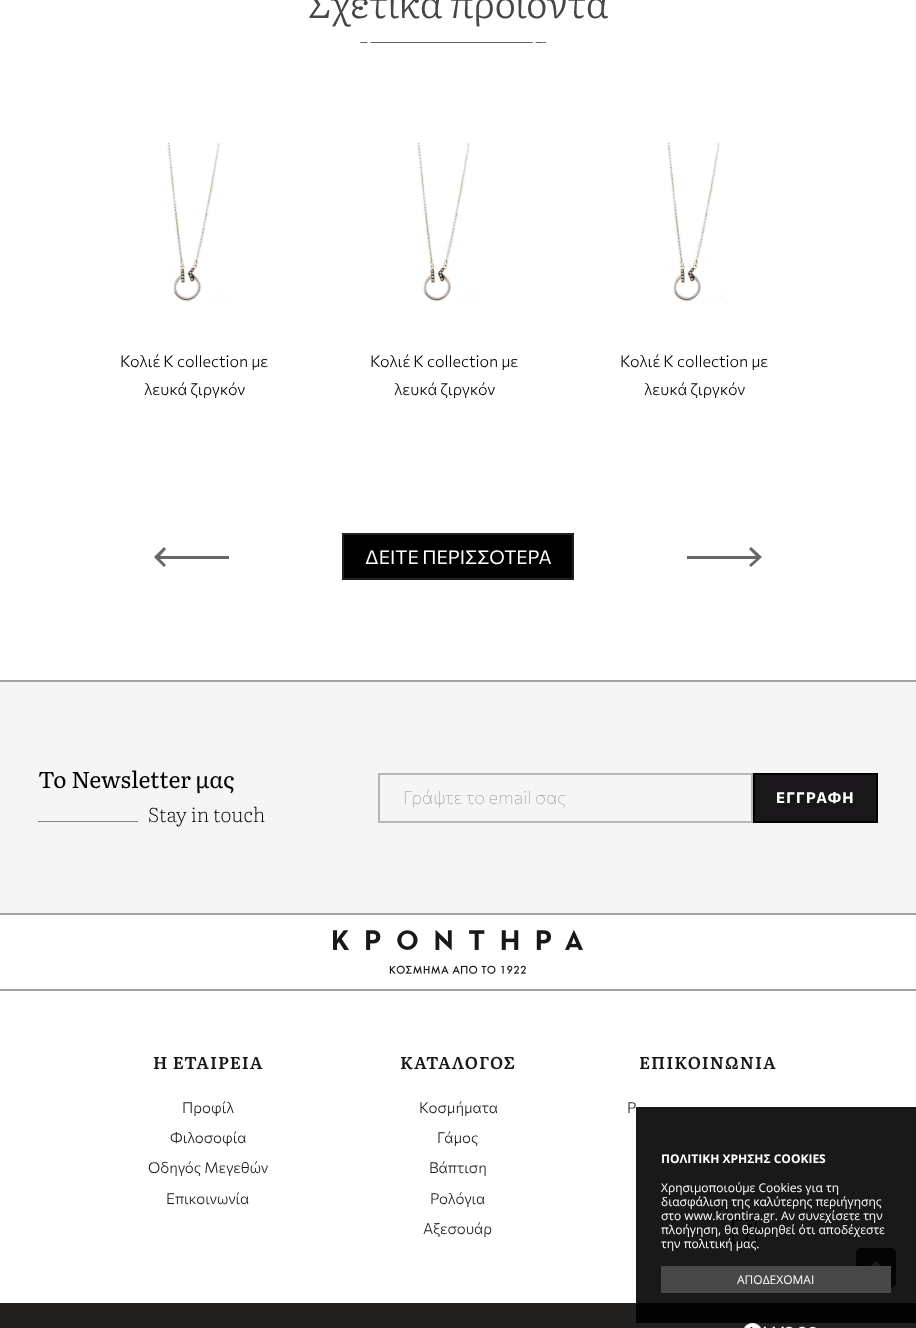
(async () => {
const canvas = document.querySelector("canvas")
canvas.width = 916
canvas.height = 1328
const c = canvas.getContext("2d")
c.miterLimit = 4
c.fontKerning = "normal"
function T(s,x,y){c.fillText(s,x,y)}
function R(x,y,w,h){c.fillRect(x,y,w,h)}
function Q(x,y,w,h,r){c.beginPath();c.roundRect(x,y,w,h,r);c.fill()}
async function I(src,x,y,w,h){const img=new Image();img.src=src;await img.decode();c.drawImage(img,x,y,w,h)}
let path
c.fillStyle="#fff"
R(0,0,916,1328)
c.font="300 38px Literata"
c.fillStyle="#454545"
T("Σχετικά προϊόντα",307,18)
await I("1.png",360,42,186,1)
await I("2.png",167,143,61,162)
c.font="300 16px Commissioner"
c.fillStyle="#000"
T("Κολιέ K collection με",120,367)
T("λευκά ζιργκόν",144,395)
await I("2.png",417,143,61,162)
T("Κολιέ K collection με",370,367)
T("λευκά ζιργκόν",394,395)
await I("3.png",667,143,61,162)
T("Κολιέ K collection με",620,367)
T("λευκά ζιργκόν",644,395)
c.fillStyle="#666"
path = new Path2D("M164 567l2-2l-6-6h69v-3h-69l6-7l-2-2l-10 10z")
c.fill(path)
c.fillStyle="#000"
c.beginPath()
c.rect(343,534,230,45)
c.fill()
c.strokeStyle="#221f1f"
c.lineWidth=2
c.stroke()
c.font="19px Commissioner"
c.fillStyle="#fff"
T("ΔΕΙΤΕ ΠΕΡΙΣΣΟΤΕΡΑ",365,564)
c.fillStyle="#666"
path = new Path2D("M751 547l-2 2l7 7h-69v3h69l-7 6l2 2l11-10z")
c.fill(path)
c.fillStyle="#f5f5f5"
R(0,682,916,231)
c.fillStyle="#a3a2a2"
R(0,680,916,2)
c.font="23px Literata"
c.fillStyle="#000"
T("Το Newsletter μας",38,788)
c.fillStyle="#808080"
R(38,821,100,1)
c.font="200 20px Literata"
c.fillStyle="#000"
T("Stay in touch",148,822)
c.strokeStyle="#b7b7b7"
c.strokeRect(379,774,373,48)
c.font="100 18px Commissioner"
c.fillStyle="#999"
T("Γράψτε το email σας",403,804)
c.fillStyle="#1a171b"
c.beginPath()
c.rect(754,774,123,48)
c.fill()
c.strokeStyle="#000"
c.stroke()
c.letterSpacing="1.25px"
c.font="bold 15px Commissioner"
c.fillStyle="#fff"
T("ΕΓΓΡΑΦΗ",776,803)
c.fillStyle="#a3a2a2"
R(0,913,916,2)
R(0,989,916,2)
await I("4.png",333,930,250,44)
c.letterSpacing="1px"
c.font="600 17px Literata"
c.fillStyle="#1a171b"
T("Η ΕΤΑΙΡΕΙΑ",153,1069)
c.letterSpacing="0px"
c.font="300 15px Commissioner"
T("Προφίλ",182,1113)
T("Φιλοσοφία",170,1143)
T("Οδηγός Μεγεθών",148,1173)
T("Επικοινωνία",166,1204)
c.letterSpacing="1px"
c.font="600 17px Literata"
T("ΚΑΤΑΛΟΓΟΣ",400,1069)
c.letterSpacing="0px"
c.font="300 15px Commissioner"
T("Κοσμήματα",419,1113)
T("Γάμος",437,1143)
T("Βάπτιση",429,1173)
T("Ρολόγια",430,1204)
T("Αξεσουάρ",423,1234)
c.letterSpacing="1px"
c.font="600 17px Literata"
T("ΕΠΙΚΟΙΝΩΝΙΑ",639,1069)
c.letterSpacing="0px"
c.font="300 15px Commissioner"
T("Ρ",627,1113)
await I("5.png",732,1219,25,25)
c.fillStyle="#333"
Q(856,1248,40,40,5)
c.fillStyle="#fff"
path = new Path2D("M886 1271h-20l10-10z")
c.fill(path)
c.fillStyle="#221f1f"
R(0,1303,916,25)
c.fillStyle="#000000e6"
R(636,1107,280,216)
c.font="bold 12px Open Sans"
c.fillStyle="#fff"
T("ΠΟΛΙΤΙΚΗ ΧΡΗΣΗΣ COOKIES",661,1163)
c.font="12px Open Sans"
T("Χρησιμοποιούμε Cookies για τη",661,1192)
T("διασφάλιση της καλύτερης περιήγησης",661,1206)
T("στο www.krontira.gr. Αν συνεχίσετε την",661,1220)
T("πλοήγηση, θα θεωρηθεί ότι αποδέχεστε",661,1234)
T("την πολιτική μας.",661,1248)
c.fillStyle="#484848"
R(661,1266,230,27)
c.fillStyle="#fff"
T("ΑΠΟΔΕΧΟΜΑΙ",737,1284)
await I("6.png",743,1323,74,5)
})()
